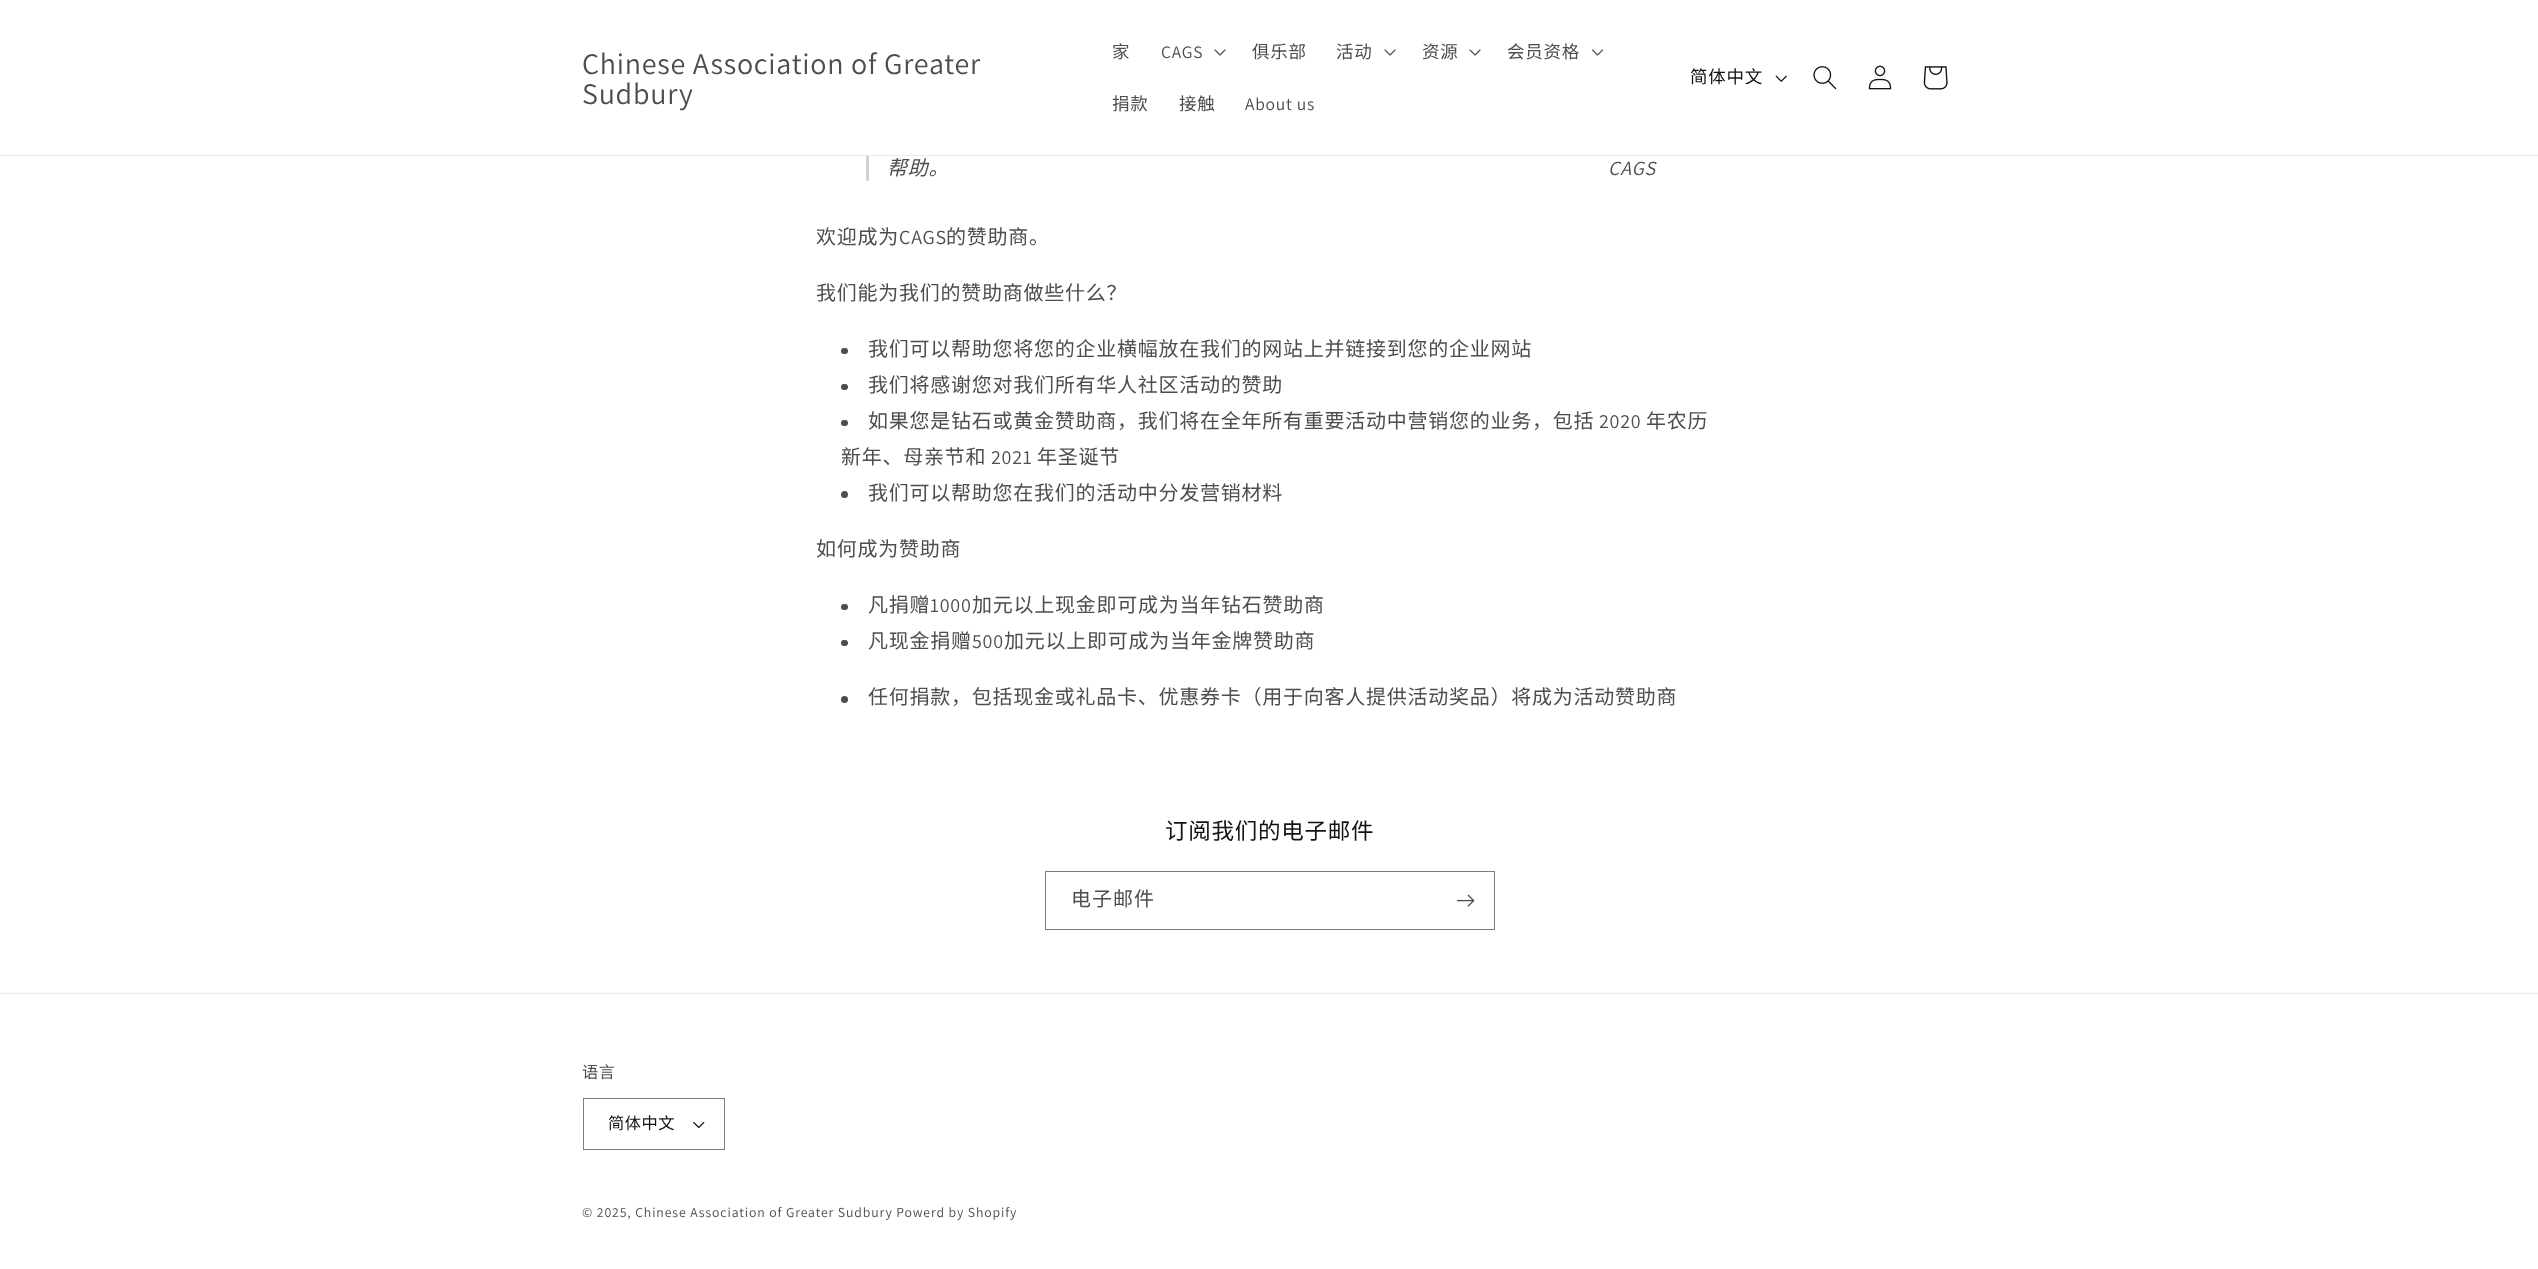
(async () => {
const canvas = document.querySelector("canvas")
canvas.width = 2538
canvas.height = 1269
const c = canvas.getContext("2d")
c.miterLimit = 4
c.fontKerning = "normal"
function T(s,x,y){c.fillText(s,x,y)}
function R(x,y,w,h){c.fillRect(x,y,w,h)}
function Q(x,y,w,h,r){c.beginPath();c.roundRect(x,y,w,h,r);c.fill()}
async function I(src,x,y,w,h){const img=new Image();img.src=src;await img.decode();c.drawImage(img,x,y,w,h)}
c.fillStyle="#fff"
R(0,0,2538,1269)
c.fillStyle="#ececec"
R(0,155,2538,1)
c.letterSpacing="0.75px"
c.font="30px Assistant"
c.fillStyle="#4d4d4d"
T("Chinese Association of Greater",582,74)
T("Sudbury",582,104)
c.font="17.5px Noto Sans CJK SC"
T("家",1112,58)
c.font="17.5px Assistant"
T("CAGS",1161,58)
await I("1.png",1214,49,12,7)
c.font="17.5px Noto Sans CJK SC"
T("俱乐部",1252,58)
T("活动",1336,58)
await I("1.png",1384,49,12,7)
T("资源",1422,58)
await I("1.png",1469,49,12,7)
T("会员资格",1507,58)
await I("2.png",1592,49,11,7)
T("捐款",1112,110)
T("接触",1179,110)
c.font="17.5px Assistant"
T("About us",1245,110)
c.font="17.5px Noto Sans CJK SC"
c.fillStyle="#121212"
T("简体中文",1690,83)
await I("3.png",1775,75,12,7)
await I("4.png",1813,66,24,24)
await I("5.png",1868,65,24,25)
await I("6.png",1923,66,25,24)
c.fillStyle="#d0d0d0"
R(866,156,3,25)
c.font="italic 20px Noto Sans CJK SC"
c.fillStyle="#4d4d4d"
T("帮助。",887,175)
c.font="italic 20px Assistant"
T("CAGS",1608,175)
c.font="20px Noto Sans CJK SC"
T("欢迎成为",816,244)
c.font="20px Assistant"
T("CAGS",899,244)
c.font="20px Noto Sans CJK SC"
T("的赞助商。",946,244)
T("我们能为我们的赞助商做些什么？",816,300)
Q(841,348,7,6,3)
T("我们可以帮助您将您的企业横幅放在我们的网站上并链接到您的企业网站",868,356)
Q(841,384,7,6,3)
T("我们将感谢您对我们所有华人社区活动的赞助",868,392)
Q(841,420,7,6,3)
T("如果您是钻石或黄金赞助商，我们将在全年所有重要活动中营销您的业务，包括",868,428)
c.font="20px Assistant"
T("2020",1599,428)
c.font="20px Noto Sans CJK SC"
T("年农历",1646,428)
T("新年、母亲节和",841,464)
c.font="20px Assistant"
T("2021",991,464)
c.font="20px Noto Sans CJK SC"
T("年圣诞节",1037,464)
c.beginPath()
c.arc(844.5,494.5,3.5,0,7)
c.fill()
T("我们可以帮助您在我们的活动中分发营销材料",868,500)
T("如何成为赞助商",816,556)
Q(841,604,7,6,3)
T("凡捐赠",868,612)
c.font="20px Assistant"
T("1000",930,612)
c.font="20px Noto Sans CJK SC"
T("加元以上现金即可成为当年钻石赞助商",972,612)
Q(841,640,7,6,3)
T("凡现金捐赠",868,648)
c.font="20px Assistant"
T("500",972,648)
c.font="20px Noto Sans CJK SC"
T("加元以上即可成为当年金牌赞助商",1004,648)
c.beginPath()
c.arc(844.5,699.5,3.5,0,7)
c.fill()
T("任何捐款，包括现金或礼品卡、优惠券卡（用于向客人提供活动奖品）将成为活动赞助商",868,704)
c.font="22.5px Noto Sans CJK SC"
c.fillStyle="#121212"
T("订阅我们的电子邮件",1165,839)
c.strokeStyle="#7d7d7d"
c.strokeRect(1045.5,871.5,449,58)
c.letterSpacing="1px"
c.font="20px Noto Sans CJK SC"
c.fillStyle="#4d4d4d"
T("电子邮件",1071,906)
await I("7.png",1457,894,18,13)
c.fillStyle="#ececec"
R(0,993,2538,1)
c.letterSpacing="0.5px"
c.font="16.25px Noto Sans CJK SC"
c.fillStyle="#4d4d4d"
T("语言",582,1078)
await I("8.png",693,1121,12,8)
c.strokeRect(583.5,1098.5,141,51)
c.fillStyle="#121212"
T("简体中文",608,1129)
c.letterSpacing="0.88px"
c.font="13.75px Assistant"
c.fillStyle="#4d4d4d"
T("© 2025, Chinese Association of Greater Sudbury Powerd by Shopify",582,1217)
})()
